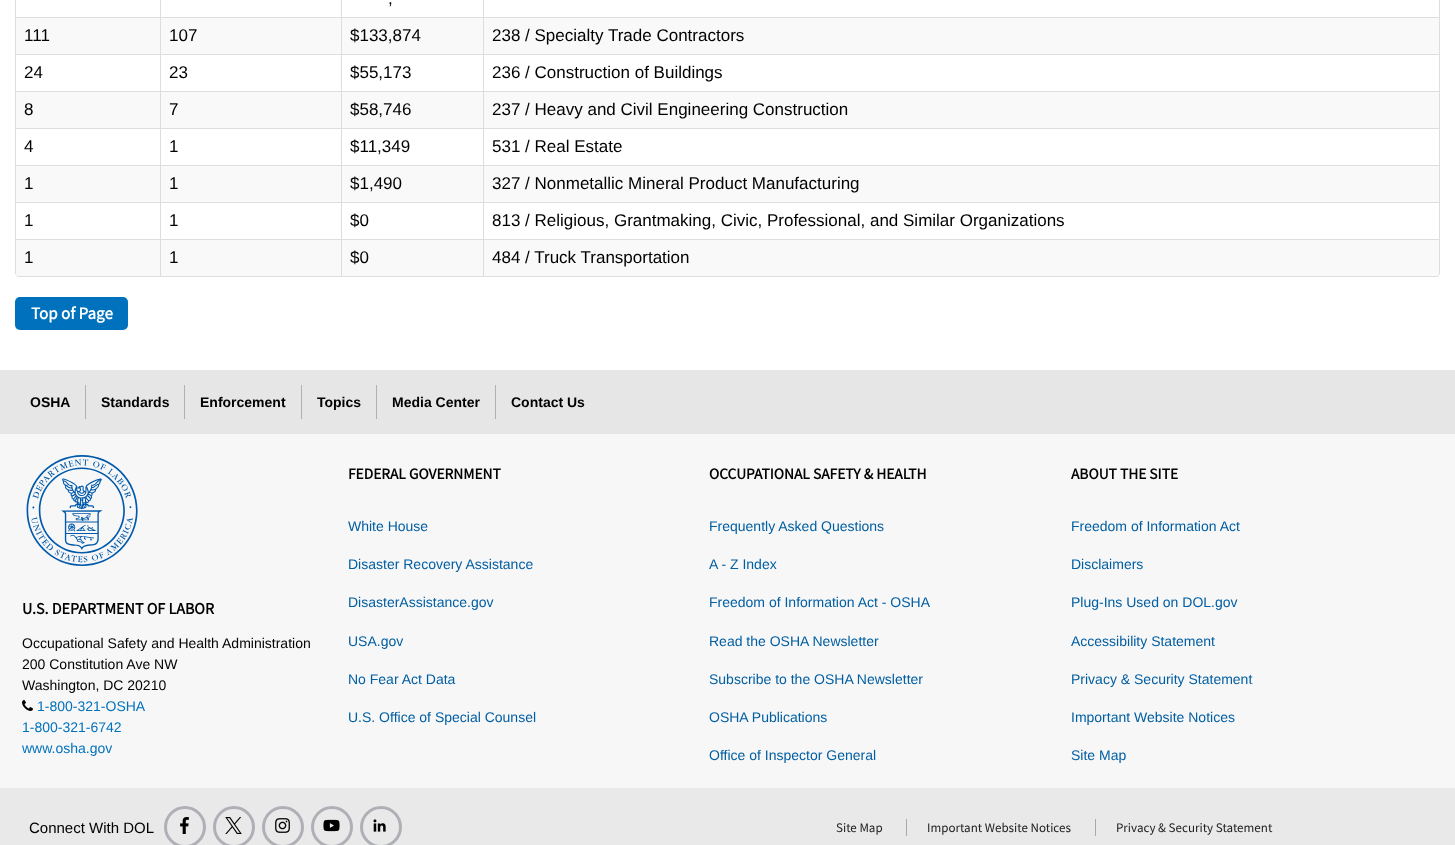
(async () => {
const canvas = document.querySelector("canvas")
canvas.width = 1455
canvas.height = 845
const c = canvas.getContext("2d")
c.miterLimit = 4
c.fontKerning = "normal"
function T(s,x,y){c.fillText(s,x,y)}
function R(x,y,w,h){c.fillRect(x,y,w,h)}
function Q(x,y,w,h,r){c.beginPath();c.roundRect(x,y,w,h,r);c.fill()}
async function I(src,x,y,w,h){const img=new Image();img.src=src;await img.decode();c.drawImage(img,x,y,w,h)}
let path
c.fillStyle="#fff"
R(0,0,1455,845)
c.fillStyle="#ddd"
path = new Path2D("M19-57h1417c2 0 4 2 4 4v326c0 2-2 4-4 4h-1417c-2 0-4-2-4-4v-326c0-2 2-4 4-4zm0 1h1417c2 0 3 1 3 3v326c0 2-1 3-3 3h-1417c-2 0-4-1-4-3v-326c0-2 2-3 4-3z")
c.fill(path,"evenodd")
R(15,0,1,17)
R(160,0,1,17)
R(341,0,1,17)
c.font="17px Liberation Sans"
c.fillStyle="#000"
T(",",388,4)
c.fillStyle="#ddd"
R(483,0,1,17)
c.fillStyle="#f9f9f9"
R(16,18,144,36)
c.fillStyle="#ddd"
R(15,17,1424,1)
R(15,17,1,37)
c.fillStyle="#000"
T("111",24,41)
c.fillStyle="#f9f9f9"
R(161,18,180,36)
c.fillStyle="#ddd"
R(160,17,1,37)
c.fillStyle="#000"
T("107",169,41)
c.fillStyle="#f9f9f9"
R(342,18,141,36)
c.fillStyle="#ddd"
R(341,17,1,37)
c.fillStyle="#000"
T("$133,874",350,41)
c.fillStyle="#f9f9f9"
R(484,18,955,36)
c.fillStyle="#ddd"
R(483,17,1,37)
c.fillStyle="#000"
T("238 / Specialty Trade Contractors",492,41)
c.fillStyle="#ddd"
R(15,54,1424,1)
R(15,54,1,37)
c.fillStyle="#000"
T("24",24,78)
c.fillStyle="#ddd"
R(160,54,1,37)
c.fillStyle="#000"
T("23",169,78)
c.fillStyle="#ddd"
R(341,54,1,37)
c.fillStyle="#000"
T("$55,173",350,78)
c.fillStyle="#ddd"
R(483,54,1,37)
c.fillStyle="#000"
T("236 / Construction of Buildings",492,78)
c.fillStyle="#f9f9f9"
R(16,92,144,36)
c.fillStyle="#ddd"
R(15,91,1424,1)
R(15,91,1,37)
c.fillStyle="#000"
T("8",24,115)
c.fillStyle="#f9f9f9"
R(161,92,180,36)
c.fillStyle="#ddd"
R(160,91,1,37)
c.fillStyle="#000"
T("7",169,115)
c.fillStyle="#f9f9f9"
R(342,92,141,36)
c.fillStyle="#ddd"
R(341,91,1,37)
c.fillStyle="#000"
T("$58,746",350,115)
c.fillStyle="#f9f9f9"
R(484,92,955,36)
c.fillStyle="#ddd"
R(483,91,1,37)
c.fillStyle="#000"
T("237 / Heavy and Civil Engineering Construction",492,115)
c.fillStyle="#ddd"
R(15,128,1424,1)
R(15,128,1,37)
c.fillStyle="#000"
T("4",24,152)
c.fillStyle="#ddd"
R(160,128,1,37)
c.fillStyle="#000"
T("1",169,152)
c.fillStyle="#ddd"
R(341,128,1,37)
c.fillStyle="#000"
T("$11,349",350,152)
c.fillStyle="#ddd"
R(483,128,1,37)
c.fillStyle="#000"
T("531 / Real Estate",492,152)
c.fillStyle="#f9f9f9"
R(16,166,144,36)
c.fillStyle="#ddd"
R(15,165,1424,1)
R(15,165,1,37)
c.fillStyle="#000"
T("1",24,189)
c.fillStyle="#f9f9f9"
R(161,166,180,36)
c.fillStyle="#ddd"
R(160,165,1,37)
c.fillStyle="#000"
T("1",169,189)
c.fillStyle="#f9f9f9"
R(342,166,141,36)
c.fillStyle="#ddd"
R(341,165,1,37)
c.fillStyle="#000"
T("$1,490",350,189)
c.fillStyle="#f9f9f9"
R(484,166,955,36)
c.fillStyle="#ddd"
R(483,165,1,37)
c.fillStyle="#000"
T("327 / Nonmetallic Mineral Product Manufacturing",492,189)
c.fillStyle="#ddd"
R(15,202,1424,1)
R(15,202,1,37)
c.fillStyle="#000"
T("1",24,226)
c.fillStyle="#ddd"
R(160,202,1,37)
c.fillStyle="#000"
T("1",169,226)
c.fillStyle="#ddd"
R(341,202,1,37)
c.fillStyle="#000"
T("$0",350,226)
c.fillStyle="#ddd"
R(483,202,1,37)
c.fillStyle="#000"
T("813 / Religious, Grantmaking, Civic, Professional, and Similar Organizations",492,226)
c.fillStyle="#f9f9f9"
c.beginPath()
c.roundRect(15,239,145,37,[0,0,0,4])
c.fill()
c.fillStyle="#ddd"
R(15,239,468,1)
R(15,239,1,35)
c.fillStyle="#000"
T("1",24,263)
c.fillStyle="#f9f9f9"
R(161,240,180,36)
c.fillStyle="#ddd"
R(160,239,1,37)
c.fillStyle="#000"
T("1",169,263)
c.fillStyle="#f9f9f9"
R(342,240,141,36)
c.fillStyle="#ddd"
R(341,239,1,37)
c.fillStyle="#000"
T("$0",350,263)
c.fillStyle="#f9f9f9"
c.beginPath()
c.roundRect(483,239,956,37,[0,0,4,0])
c.fill()
c.fillStyle="#ddd"
R(483,239,956,1)
R(483,239,1,37)
c.fillStyle="#000"
T("484 / Truck Transportation",492,263)
c.fillStyle="#0071bc"
Q(15,297,113,33,5)
c.font="bold 17px Source Sans Pro"
c.fillStyle="#fff"
T("Top of Page",31,319)
c.fillStyle="#e6e6e6"
R(0,370,1455,64)
c.font="bold 14px Liberation Sans"
c.fillStyle="#000"
T("OSHA",30,407)
c.fillStyle="#aeb0b5"
R(85,385,1,34)
c.fillStyle="#000"
T("Standards",101,407)
c.fillStyle="#aeb0b5"
R(184,385,1,34)
c.fillStyle="#000"
T("Enforcement",200,407)
c.fillStyle="#aeb0b5"
R(301,385,1,34)
c.fillStyle="#000"
T("Topics",317,407)
c.fillStyle="#aeb0b5"
R(376,385,1,34)
c.fillStyle="#000"
T("Media Center",392,407)
c.fillStyle="#aeb0b5"
R(495,385,1,34)
c.fillStyle="#000"
T("Contact Us",511,407)
c.fillStyle="#f7f7f7"
R(0,434,1455,354)
await I("1.png",26,455,112,111)
c.font="bold 16px Source Sans Pro"
c.fillStyle="#000"
T("U.S. DEPARTMENT OF LABOR",22,614)
c.font="14px Liberation Sans"
T("Occupational Safety and Health Administration",22,648)
T("200 Constitution Ave NW",22,669)
T("Washington, DC 20210",22,690)
await I("2.png",22,700,11,11)
c.fillStyle="#0071bc"
T("1-800-321-OSHA",37,711)
T("1-800-321-6742",22,732)
T("www.osha.gov",22,753)
c.font="bold 15.4px Source Sans Pro"
c.fillStyle="#000"
T("FEDERAL GOVERNMENT",348,479)
c.font="14px Liberation Sans"
c.fillStyle="#005ea2"
T("White House",348,531)
T("Disaster Recovery Assistance",348,569)
T("DisasterAssistance.gov",348,607)
T("USA.gov",348,646)
T("No Fear Act Data",348,684)
T("U.S. Office of Special Counsel",348,722)
c.font="bold 15.4px Source Sans Pro"
c.fillStyle="#000"
T("OCCUPATIONAL SAFETY & HEALTH",709,479)
c.font="14px Liberation Sans"
c.fillStyle="#005ea2"
T("Frequently Asked Questions",709,531)
T("A - Z Index",709,569)
T("Freedom of Information Act - OSHA",709,607)
T("Read the OSHA Newsletter",709,646)
T("Subscribe to the OSHA Newsletter",709,684)
T("OSHA Publications",709,722)
T("Office of Inspector General",709,760)
c.font="bold 15.4px Source Sans Pro"
c.fillStyle="#000"
T("ABOUT THE SITE",1071,479)
c.font="14px Liberation Sans"
c.fillStyle="#005ea2"
T("Freedom of Information Act",1071,531)
T("Disclaimers",1071,569)
T("Plug-Ins Used on DOL.gov",1071,607)
T("Accessibility Statement",1071,646)
T("Privacy & Security Statement",1071,684)
T("Important Website Notices",1071,722)
T("Site Map",1071,760)
c.fillStyle="#e9e9e9"
R(0,788,1455,57)
c.font="15px Liberation Sans"
c.fillStyle="#000"
T("Connect With DOL",29,833)
c.beginPath()
c.arc(185,827,19.5,0,7)
c.strokeStyle="#aeb0b5"
c.lineWidth=3
c.stroke()
await I("3.png",180,817,9,17)
c.beginPath()
c.arc(234,827,19.5,0,7)
c.stroke()
await I("4.png",225,817,17,17)
c.beginPath()
c.arc(283,827,19.5,0,7)
c.stroke()
await I("5.png",275,818,15,15)
c.beginPath()
c.arc(332,827,19.5,0,7)
c.stroke()
await I("6.png",323,819,17,13)
c.beginPath()
c.arc(381,827,19.5,0,7)
c.stroke()
await I("7.png",373,819,13,13)
c.font="13px Source Sans Pro"
c.fillStyle="#212121"
T("Site Map",836,832)
T("Important Website Notices",927,832)
c.fillStyle="#a9a9a9"
R(906,819,1,17)
c.fillStyle="#212121"
T("Privacy & Security Statement",1116,832)
c.fillStyle="#a9a9a9"
R(1095,819,1,17)
})()
